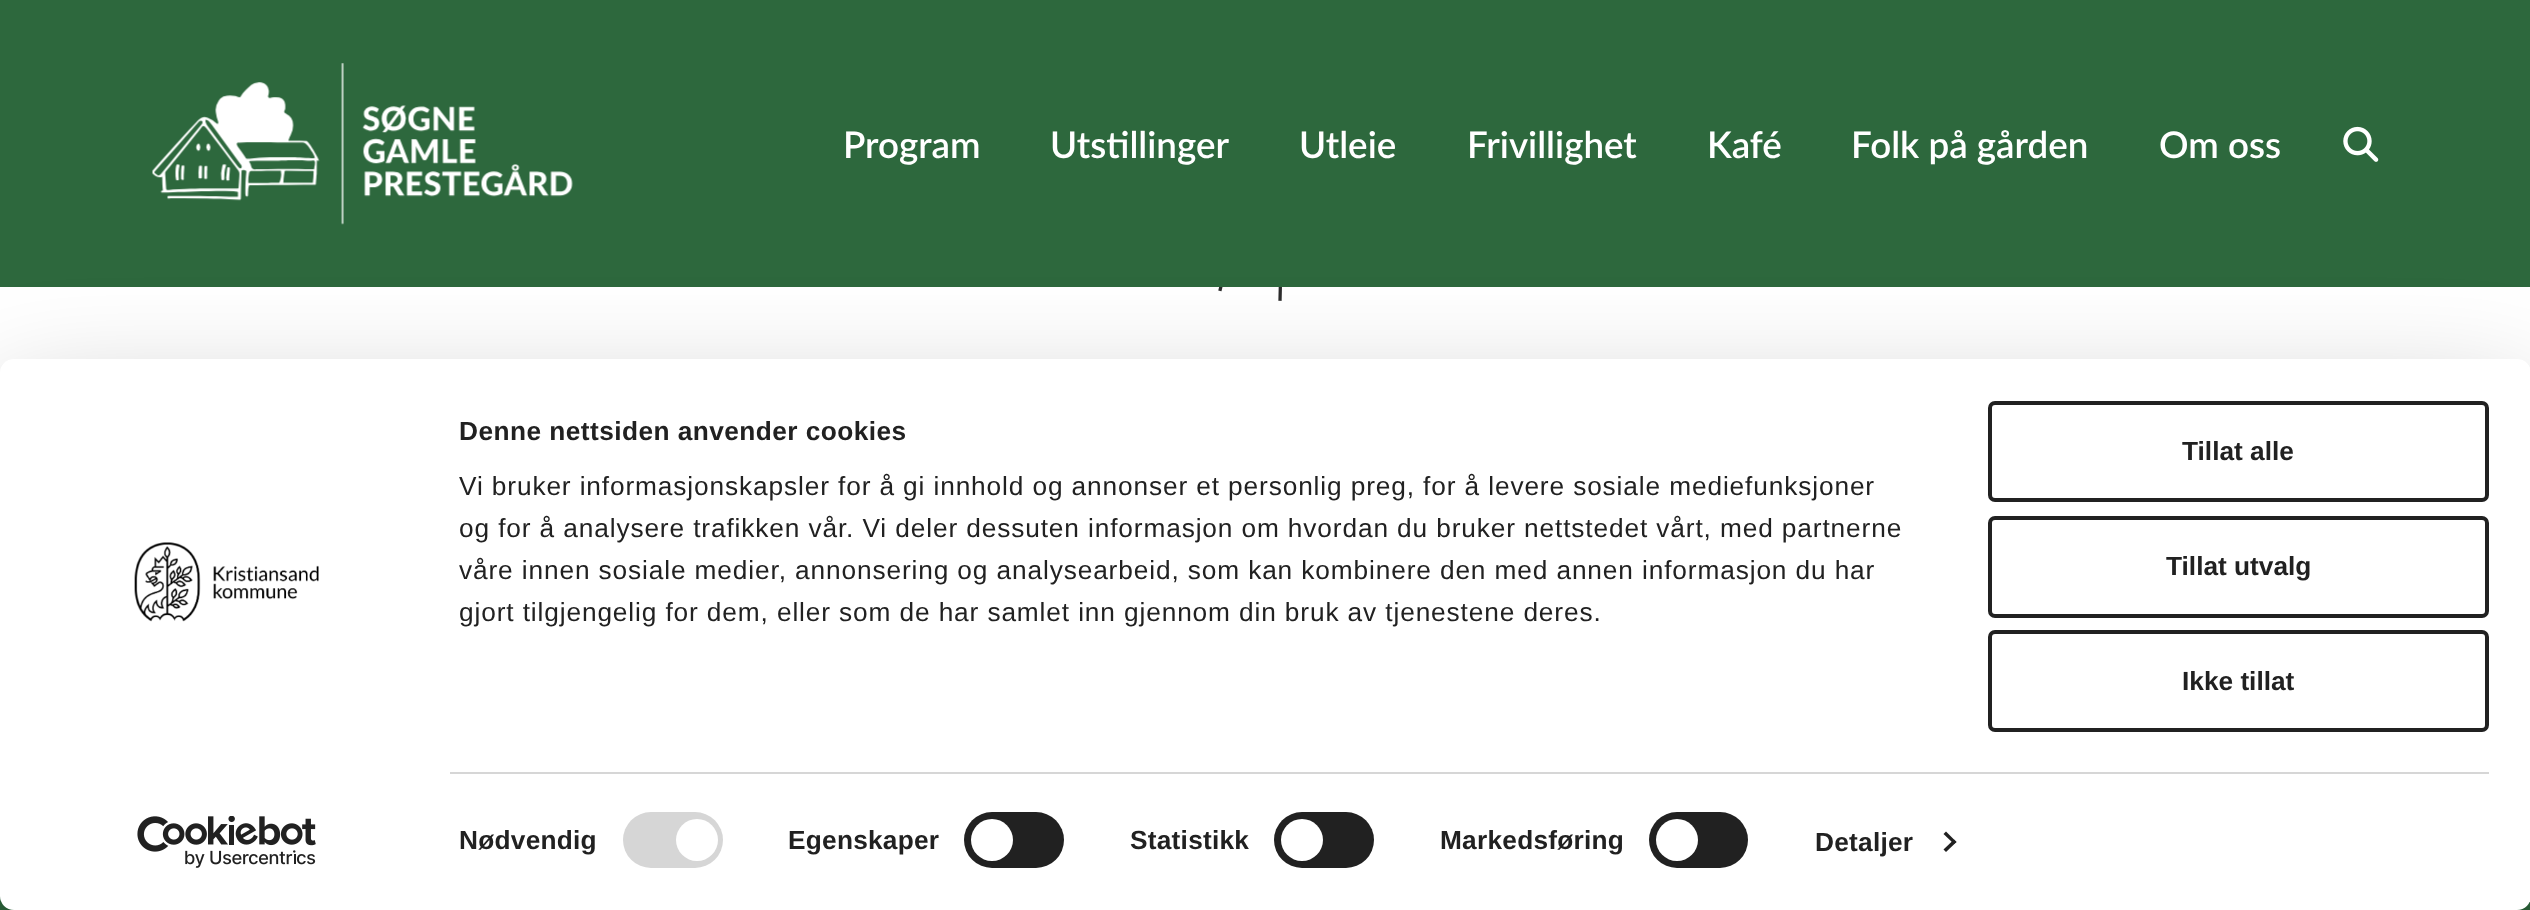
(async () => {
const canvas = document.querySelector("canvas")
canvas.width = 2530
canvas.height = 910
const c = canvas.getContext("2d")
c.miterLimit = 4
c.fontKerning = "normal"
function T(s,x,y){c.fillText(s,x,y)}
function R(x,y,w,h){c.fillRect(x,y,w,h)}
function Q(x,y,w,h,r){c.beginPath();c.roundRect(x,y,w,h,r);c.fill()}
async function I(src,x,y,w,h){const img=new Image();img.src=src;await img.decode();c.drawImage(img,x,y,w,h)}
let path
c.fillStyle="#fff"
R(0,0,2530,910)
c.fillStyle="#2d683d"
R(0,0,2530,287)
await I("1.png",152,63,421,162)
c.font="600 36.75px Lato"
c.fillStyle="#fff"
T("Program",843,158)
T("Utstillinger",1050,158)
T("Utleie",1299,158)
T("Frivillighet",1467,158)
T("Kafé",1707,158)
T("Folk på gården",1851,158)
T("Om oss",2159,158)
await I("2.png",2343,126,36,36)
await I("3.png",1218,287,64,14)
c.fillStyle="#2d683d"
R(0,896,2530,14)
c.fillStyle="#0000004d"
c.filter="blur(61px)"
c.beginPath()
c.roundRect(0,411,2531,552,14)
c.fill()
c.filter="none"
c.fillStyle="#fff"
Q(0,359,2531,551,14)
await I("4.png",134,542,185,80)
await I("5.png",137,816,179,52)
c.letterSpacing="0.45px"
c.font="bold 26.25px Liberation Sans"
c.fillStyle="#212121"
T("Denne nettsiden anvender cookies",459,440)
c.letterSpacing="0.88px"
c.font="26.25px Liberation Sans"
T("Vi bruker informasjonskapsler for å gi innhold og annonser et personlig preg, for å levere sosiale mediefunksjoner",459,495)
T("og for å analysere trafikken vår. Vi deler dessuten informasjon om hvordan du bruker nettstedet vårt, med partnerne",459,537)
T("våre innen sosiale medier, annonsering og analysearbeid, som kan kombinere den med annen informasjon du har",459,579)
T("gjort tilgjengelig for dem, eller som de har samlet inn gjennom din bruk av tjenestene deres.",459,621)
c.fillStyle="#d6d6d6"
R(450,772,2039,2)
c.letterSpacing="0.25px"
c.font="bold 26.25px Liberation Sans"
c.fillStyle="#212121"
T("Nødvendig",459,849)
c.fillStyle="#d6d6d6"
Q(623,812,100,56,28)
c.fillStyle="#fff"
c.beginPath()
c.arc(697,840,21,0,7)
c.fill()
c.fillStyle="#212121"
T("Egenskaper",788,849)
Q(964,812,100,56,28)
c.fillStyle="#fff"
c.beginPath()
c.arc(992,840,21,0,7)
c.fill()
c.fillStyle="#212121"
T("Statistikk",1130,849)
Q(1274,812,100,56,28)
c.fillStyle="#fff"
c.beginPath()
c.arc(1302,840,21,0,7)
c.fill()
c.fillStyle="#212121"
T("Markedsføring",1440,849)
Q(1649,812,99,56,28)
c.fillStyle="#fff"
c.beginPath()
c.arc(1677,840,21,0,7)
c.fill()
c.fillStyle="#212121"
T("Detaljer",1815,851)
path = new Path2D("M1946 831.5l10.5 10.5l-2.5 2l-10.5-10z")
c.fill(path)
path = new Path2D("M1954 839.5l2.5 2.5l-10.5 10l-2.5-2.5z")
c.fill(path)
c.beginPath()
c.roundRect(1990,403,497,97,5)
c.strokeStyle="#212121"
c.lineWidth=4
c.stroke()
c.letterSpacing="0px"
T("Tillat alle",2182,460)
c.beginPath()
c.roundRect(1990,518,497,98,5)
c.stroke()
T("Tillat utvalg",2166,575)
c.beginPath()
c.roundRect(1990,632,497,98,5)
c.stroke()
T("Ikke tillat",2182,690)
})()
